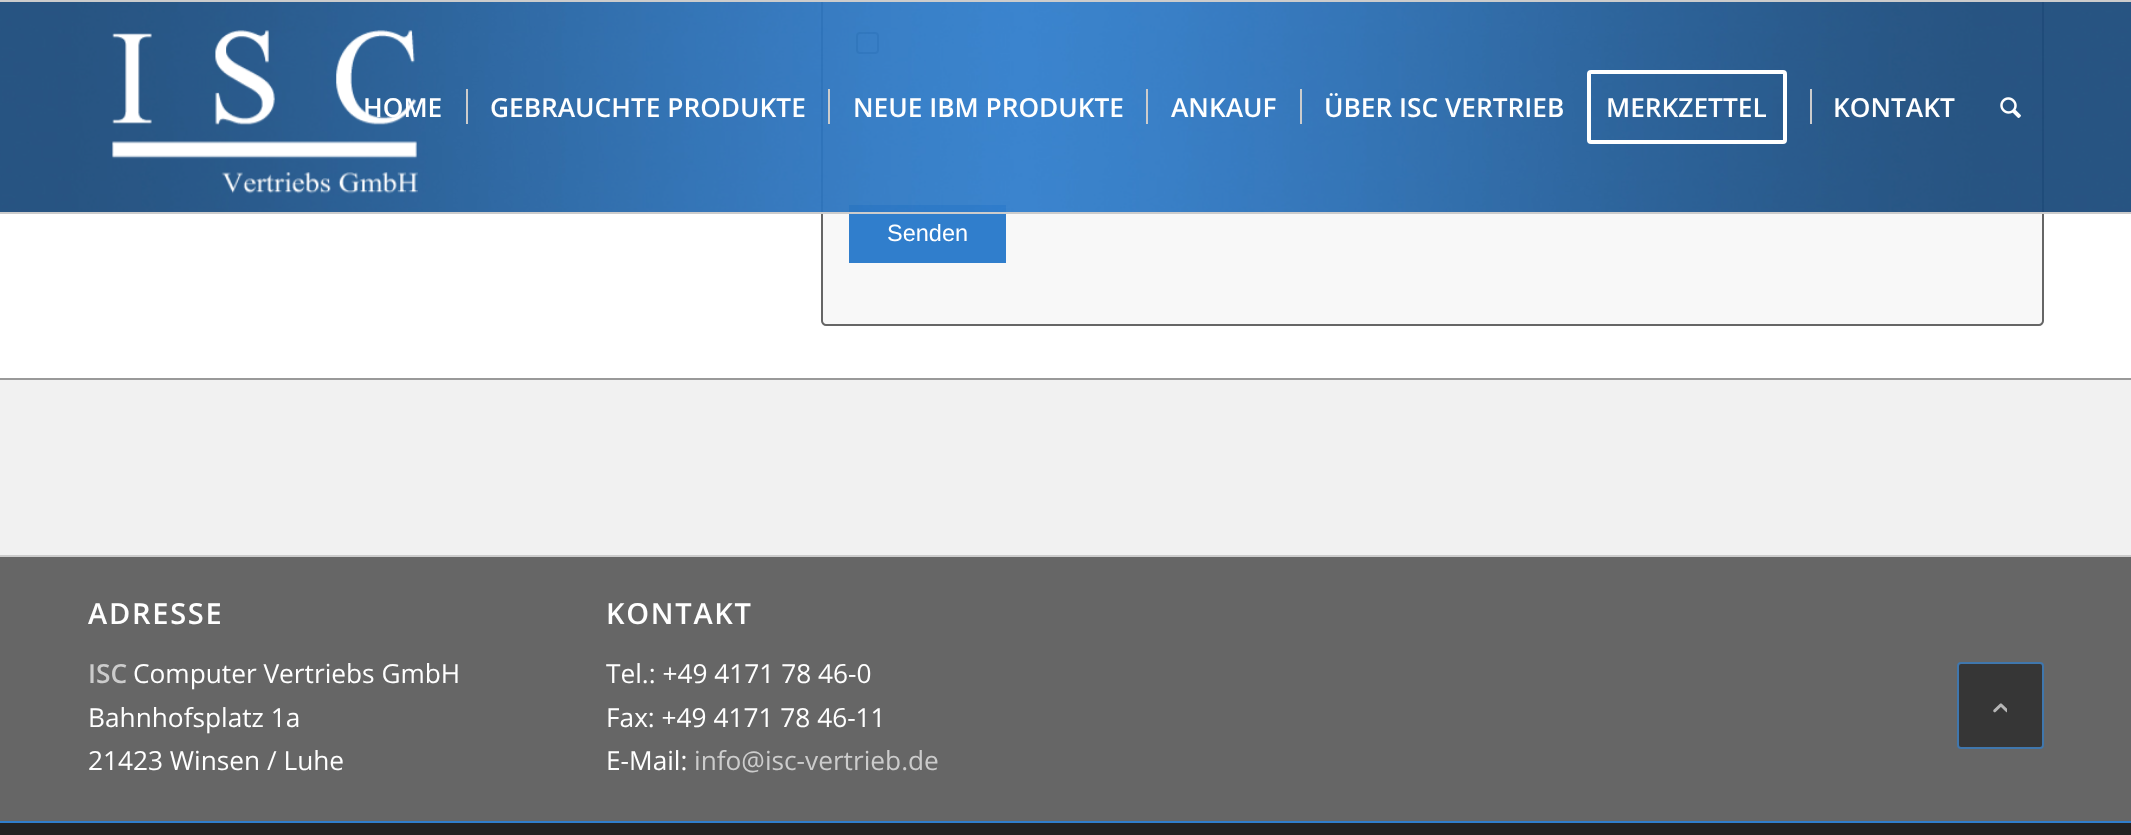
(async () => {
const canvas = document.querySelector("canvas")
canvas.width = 2131
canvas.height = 835
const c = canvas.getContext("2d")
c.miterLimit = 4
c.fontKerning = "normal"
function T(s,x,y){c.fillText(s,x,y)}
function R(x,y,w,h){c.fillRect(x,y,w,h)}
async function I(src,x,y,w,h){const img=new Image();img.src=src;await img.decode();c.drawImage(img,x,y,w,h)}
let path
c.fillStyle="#fff"
R(0,0,2131,835)
c.fillStyle="#f8f8f8"
path = new Path2D("M822-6h1221v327c0 2-2 4-4 4h-1213c-2 0-4-2-4-4z")
c.fill(path)
c.strokeStyle="#666"
c.lineWidth=2
c.stroke(path)
c.beginPath()
c.roundRect(857,33,21,20,3)
c.strokeStyle="#767676"
c.stroke()
c.fillStyle="#307ecc"
R(849,205,157,58)
await I("1.png",0,2,2131,210)
c.fillStyle="#ccc"
R(0,0,2131,2)
R(0,212,2131,2)
await I("2.png",112,30,306,164)
c.font="600 26.25px Open Sans"
c.fillStyle="#fff"
T("HOME",363,117)
T("GEBRAUCHTE PRODUKTE",490,117)
c.fillStyle="#ccc"
R(466,89,2,35)
c.fillStyle="#fff"
T("NEUE IBM PRODUKTE",853,117)
c.fillStyle="#ccc"
R(828,89,2,35)
c.fillStyle="#fff"
T("ANKAUF",1171,117)
c.fillStyle="#ccc"
R(1146,89,2,35)
c.fillStyle="#fff"
T("ÜBER ISC VERTRIEB",1324,117)
c.fillStyle="#ccc"
R(1300,89,2,35)
c.beginPath()
c.roundRect(1589,72,196,70,2)
c.strokeStyle="#fff"
c.lineWidth=4
c.stroke()
c.fillStyle="#fff"
T("MERKZETTEL",1606,117)
T("KONTAKT",1833,117)
c.fillStyle="#ccc"
R(1810,89,2,35)
await I("3.png",2000,97,21,21)
c.font="23.5px Liberation Sans"
c.fillStyle="#fff"
T("Senden",887,241)
c.fillStyle="#f1f1f1"
R(0,380,2131,175)
c.fillStyle="#999"
R(0,378,2131,2)
c.fillStyle="#666"
R(0,557,2131,264)
c.fillStyle="#ccc"
R(0,555,2131,2)
c.letterSpacing="1.75px"
c.font="600 29px Open Sans"
c.fillStyle="#fff"
T("ADRESSE",88,624)
c.letterSpacing="0px"
c.font="600 26.25px Open Sans"
c.fillStyle="#ccc"
T("ISC",88,683)
c.font="26.25px Open Sans"
c.fillStyle="#fff"
T("Computer Vertriebs GmbH",133,683)
T("Bahnhofsplatz 1a",88,727)
T("21423 Winsen / Luhe",88,770)
c.letterSpacing="1.75px"
c.font="600 29px Open Sans"
T("KONTAKT",606,624)
c.letterSpacing="0px"
c.font="26.25px Open Sans"
T("Tel.: +49 4171 78 46-0",606,683)
T("Fax: +49 4171 78 46-11",606,727)
T("E-Mail:",606,770)
c.fillStyle="#ccc"
T("info@isc-vertrieb.de",694,770)
c.fillStyle="#222"
R(0,823,2131,12)
c.fillStyle="#307ecc"
R(0,821,2131,2)
c.fillStyle="#363636"
c.beginPath()
c.roundRect(1958,663,85,85,3)
c.fill()
c.strokeStyle="#4077ad"
c.lineWidth=2
c.stroke()
await I("4.png",1993,703,14,10)
})()
